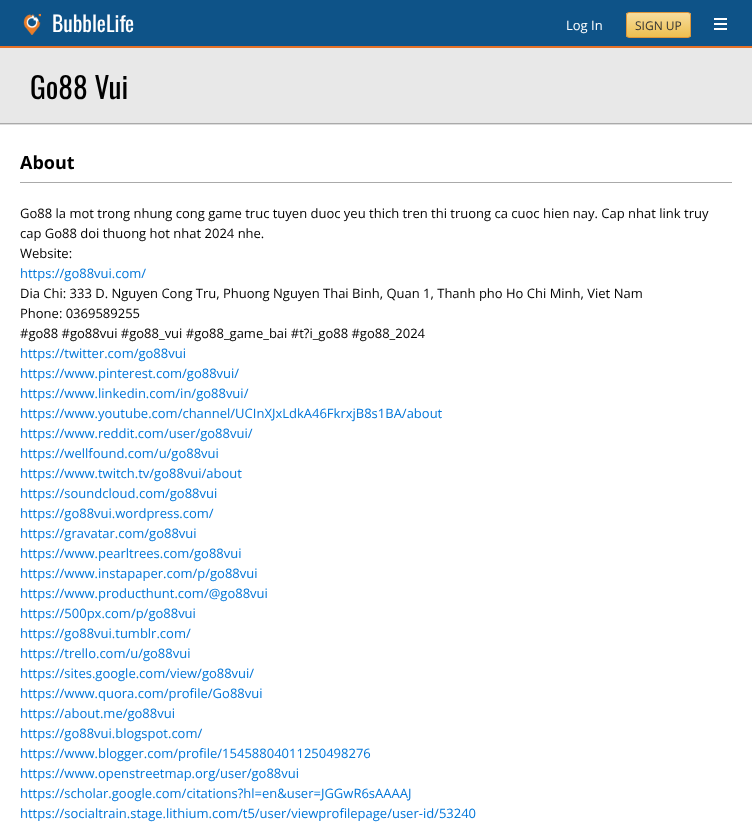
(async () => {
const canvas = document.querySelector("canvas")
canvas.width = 752
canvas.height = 826
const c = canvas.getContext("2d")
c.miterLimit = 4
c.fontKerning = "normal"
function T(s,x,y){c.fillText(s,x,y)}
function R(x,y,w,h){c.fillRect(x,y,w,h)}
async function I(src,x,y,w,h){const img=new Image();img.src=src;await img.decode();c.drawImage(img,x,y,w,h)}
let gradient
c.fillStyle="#fff"
R(0,0,752,826)
c.fillStyle="#0e5388"
R(0,0,752,46)
c.fillStyle="#e67127"
R(0,46,752,2)
await I("1.png",23,13,18,22)
c.font="21.5px Oswald"
c.fillStyle="#fff"
T("BubbleLife",52,32)
c.font="13px Open Sans"
T("Log In",566,30)
c.save()
c.beginPath()
c.roundRect(626,12,65,26,3)
c.clip()
gradient = c.createLinearGradient(659,13,659,37)
gradient.addColorStop(0,"#f7dd9e")
gradient.addColorStop(1,"#edbf4f")
c.fillStyle = gradient
R(626,13,65,24)
c.restore()
c.beginPath()
c.roundRect(626.5,12.5,64,25,2.5)
c.strokeStyle="#df9538"
c.stroke()
c.font="12px Open Sans"
c.fillStyle="#333"
T("SIGN UP",635,30)
await I("2.png",714,18,13,12)
c.fillStyle="#ddd"
c.filter="blur(0.5px)"
c.beginPath()
c.rect(0,49,752,76)
c.fill()
c.filter="none"
c.fillStyle="#e8e8e8"
R(0,48,752,75)
c.fillStyle="#aaa"
R(0,123,752,1)
c.font="29.5px Oswald"
c.fillStyle="#000"
T("Go88 Vui",30,99)
c.fillStyle="#aaa"
R(20,182,712,1)
c.font="bold 18px Open Sans"
c.fillStyle="#000"
T("About",20,169)
c.font="13px Open Sans"
T("Go88 la mot trong nhung cong game truc tuyen duoc yeu thich tren thi truong ca cuoc hien nay. Cap nhat link truy",20,218)
T("cap Go88 doi thuong hot nhat 2024 nhe.",20,238)
T("Website:",20,258)
c.fillStyle="#0176d9"
T("https://go88vui.com/",20,278)
c.fillStyle="#000"
T("Dia Chi: 333 D. Nguyen Cong Tru, Phuong Nguyen Thai Binh, Quan 1, Thanh pho Ho Chi Minh, Viet Nam",20,298)
T("Phone: 0369589255",20,318)
T("#go88 #go88vui #go88_vui #go88_game_bai #t?i_go88 #go88_2024",20,338)
c.fillStyle="#0176d9"
T("https://twitter.com/go88vui",20,358)
T("https://www.pinterest.com/go88vui/",20,378)
T("https://www.linkedin.com/in/go88vui/",20,398)
T("https://www.youtube.com/channel/UCInXJxLdkA46FkrxjB8s1BA/about",20,418)
T("https://www.reddit.com/user/go88vui/",20,438)
T("https://wellfound.com/u/go88vui",20,458)
T("https://www.twitch.tv/go88vui/about",20,478)
T("https://soundcloud.com/go88vui",20,498)
T("https://go88vui.wordpress.com/",20,518)
T("https://gravatar.com/go88vui",20,538)
T("https://www.pearltrees.com/go88vui",20,558)
T("https://www.instapaper.com/p/go88vui",20,578)
T("https://www.producthunt.com/@go88vui",20,598)
T("https://500px.com/p/go88vui",20,618)
T("https://go88vui.tumblr.com/",20,638)
T("https://trello.com/u/go88vui",20,658)
T("https://sites.google.com/view/go88vui/",20,678)
T("https://www.quora.com/profile/Go88vui",20,698)
T("https://about.me/go88vui",20,718)
T("https://go88vui.blogspot.com/",20,738)
T("https://www.blogger.com/profile/15458804011250498276",20,758)
T("https://www.openstreetmap.org/user/go88vui",20,778)
T("https://scholar.google.com/citations?hl=en&user=JGGwR6sAAAAJ",20,798)
T("https://socialtrain.stage.lithium.com/t5/user/viewprofilepage/user-id/53240",20,818)
})()
